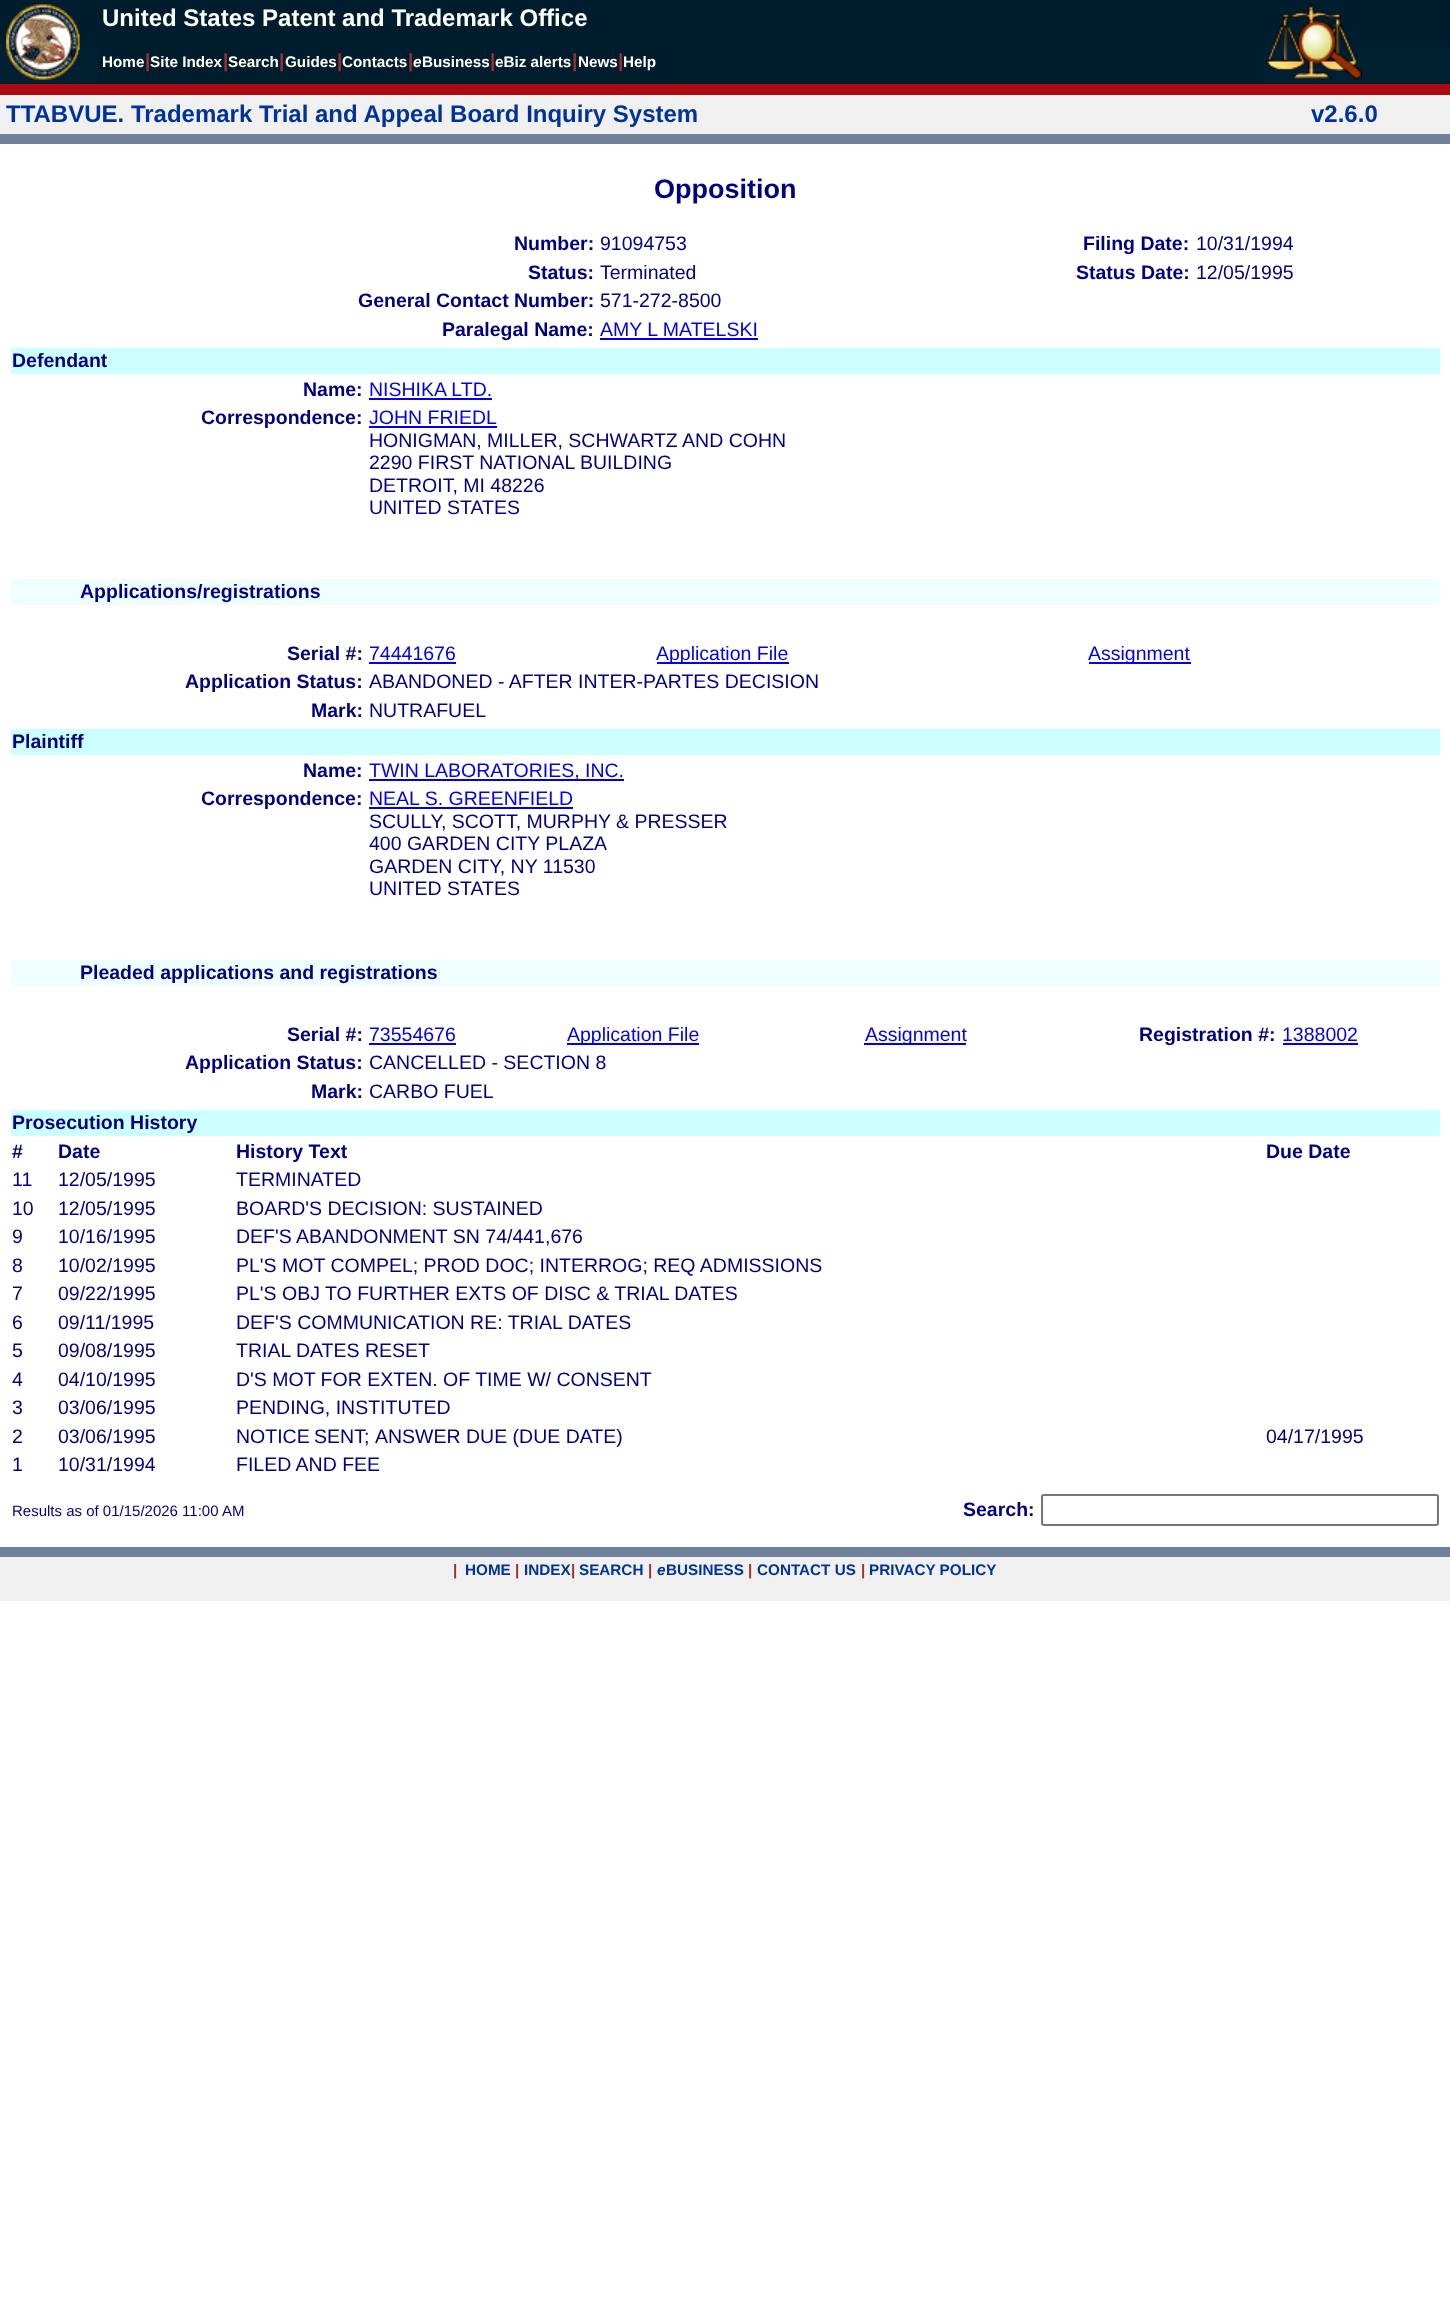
(async () => {
const canvas = document.querySelector("canvas")
canvas.width = 1450
canvas.height = 2314
const c = canvas.getContext("2d")
c.miterLimit = 4
c.fontKerning = "normal"
function T(s,x,y){c.fillText(s,x,y)}
function R(x,y,w,h){c.fillRect(x,y,w,h)}
async function I(src,x,y,w,h){const img=new Image();img.src=src;await img.decode();c.drawImage(img,x,y,w,h)}
c.fillStyle="#fff"
R(0,0,1450,2314)
c.fillStyle="#001d2d"
R(0,0,1450,45)
c.fillStyle="#002032"
R(0,45,1450,39)
await I("1.png",6,4,74,76)
c.font="bold 24px Liberation Sans"
c.fillStyle="#fff"
T("United States Patent and Trademark Office",102,26)
await I("2.png",1266,4,96,76)
c.fillStyle="#001d2d"
R(98,45,1164,39)
c.font="bold 15.25px Liberation Sans"
c.fillStyle="#fff"
T("Home",102,67)
c.font="bold 19px Liberation Sans"
c.fillStyle="#933"
T("|",145,67)
c.font="bold 15.25px Liberation Sans"
c.fillStyle="#fff"
T("Site Index",150,67)
c.font="bold 19px Liberation Sans"
c.fillStyle="#933"
T("|",223,67)
c.font="bold 15.25px Liberation Sans"
c.fillStyle="#fff"
T("Search",228,67)
c.font="bold 19px Liberation Sans"
c.fillStyle="#933"
T("|",279,67)
c.font="bold 15.25px Liberation Sans"
c.fillStyle="#fff"
T("Guides",285,67)
c.font="bold 19px Liberation Sans"
c.fillStyle="#933"
T("|",337,67)
c.font="bold 15.25px Liberation Sans"
c.fillStyle="#fff"
T("Contacts",342,67)
c.font="bold 19px Liberation Sans"
c.fillStyle="#933"
T("|",408,67)
c.font="italic bold 15.25px Liberation Sans"
c.fillStyle="#fff"
T("e",413,67)
c.font="bold 15.25px Liberation Sans"
T("Business",422,67)
c.font="bold 19px Liberation Sans"
c.fillStyle="#933"
T("|",490,67)
c.font="bold 15.25px Liberation Sans"
c.fillStyle="#fff"
T("eBiz alerts",495,67)
c.font="bold 19px Liberation Sans"
c.fillStyle="#933"
T("|",572,67)
c.font="bold 15.25px Liberation Sans"
c.fillStyle="#fff"
T("News",578,67)
c.font="bold 19px Liberation Sans"
c.fillStyle="#933"
T("|",618,67)
c.font="bold 15.25px Liberation Sans"
c.fillStyle="#fff"
T("Help",623,67)
c.fillStyle="#ac0911"
R(0,84,1450,11)
c.fillStyle="#f0f0f0"
R(0,95,1450,39)
c.font="bold 24px Liberation Sans"
c.fillStyle="#039"
T("TTABVUE. Trademark Trial and Appeal Board Inquiry System",6,122)
T("v2.6.0",1311,122)
c.fillStyle="#71819b"
R(0,134,1450,10)
c.font="bold 27px Liberation Sans"
c.fillStyle="#000080"
T("Opposition",654,198)
c.font="bold 19.5px Liberation Sans"
T("Number:",514,250)
c.font="19.5px Liberation Sans"
T("91094753",600,250)
c.font="bold 19.5px Liberation Sans"
T("Filing Date:",1083,250)
c.font="19.5px Liberation Sans"
T("10/31/1994",1196,250)
c.font="bold 19.5px Liberation Sans"
T("Status:",528,279)
c.font="19.5px Liberation Sans"
T("Terminated",600,279)
c.font="bold 19.5px Liberation Sans"
T("Status Date:",1076,279)
c.font="19.5px Liberation Sans"
T("12/05/1995",1196,279)
c.font="bold 19.5px Liberation Sans"
T("General Contact Number:",358,307)
c.font="19.5px Liberation Sans"
T("571-272-8500",600,307)
c.font="bold 19.5px Liberation Sans"
T("Paralegal Name:",442,336)
c.font="19.5px Liberation Sans"
c.fillStyle="#00e"
T("AMY L MATELSKI",600,336)
R(600,338,158,2)
c.fillStyle="#cff"
R(11,348,1429,26)
c.font="bold 19.5px Liberation Sans"
c.fillStyle="#000080"
T("Defendant",12,367)
T("Name:",303,396)
c.font="19.5px Liberation Sans"
c.fillStyle="#00e"
T("NISHIKA LTD.",369,396)
R(369,398,123,2)
c.font="bold 19.5px Liberation Sans"
c.fillStyle="#000080"
T("Correspondence:",201,424)
c.font="19.5px Liberation Sans"
c.fillStyle="#00e"
T("JOHN FRIEDL",369,424)
R(369,426,128,2)
c.fillStyle="#000080"
T("HONIGMAN, MILLER, SCHWARTZ AND COHN",369,447)
T("2290 FIRST NATIONAL BUILDING",369,469)
T("DETROIT, MI 48226",369,492)
T("UNITED STATES",369,514)
c.fillStyle="#eefdff"
R(11,579,1429,26)
c.font="bold 19.5px Liberation Sans"
c.fillStyle="#000080"
T("Applications/registrations",80,598)
T("Serial #:",287,660)
c.font="19.5px Liberation Sans"
c.fillStyle="#00e"
T("74441676",369,660)
R(369,662,87,2)
R(657,662,132,2)
T("Application File",656,660)
R(1089,662,102,2)
T("Assignment",1088,660)
c.font="bold 19.5px Liberation Sans"
c.fillStyle="#000080"
T("Application Status:",185,688)
c.font="19.5px Liberation Sans"
T("ABANDONED - AFTER INTER-PARTES DECISION",369,688)
c.font="bold 19.5px Liberation Sans"
T("Mark:",311,717)
c.font="19.5px Liberation Sans"
T("NUTRAFUEL",369,717)
c.fillStyle="#cff"
R(11,729,1429,26)
c.font="bold 19.5px Liberation Sans"
c.fillStyle="#000080"
T("Plaintiff",12,748)
T("Name:",303,777)
c.fillStyle="#00e"
R(369,779,255,2)
c.font="19.5px Liberation Sans"
T("TWIN LABORATORIES, INC.",369,777)
c.font="bold 19.5px Liberation Sans"
c.fillStyle="#000080"
T("Correspondence:",201,805)
c.font="19.5px Liberation Sans"
c.fillStyle="#00e"
T("NEAL S. GREENFIELD",369,805)
R(369,807,204,2)
c.fillStyle="#000080"
T("SCULLY, SCOTT, MURPHY & PRESSER",369,828)
T("400 GARDEN CITY PLAZA",369,850)
T("GARDEN CITY, NY 11530",369,873)
T("UNITED STATES",369,895)
c.fillStyle="#eefdff"
R(11,960,1429,26)
c.font="bold 19.5px Liberation Sans"
c.fillStyle="#000080"
T("Pleaded applications and registrations",80,979)
T("Serial #:",287,1041)
c.font="19.5px Liberation Sans"
c.fillStyle="#00e"
T("73554676",369,1041)
R(369,1043,87,2)
R(567,1043,132,2)
T("Application File",567,1041)
R(864,1043,102,2)
T("Assignment",865,1041)
c.font="bold 19.5px Liberation Sans"
c.fillStyle="#000080"
T("Registration #:",1139,1041)
c.font="19.5px Liberation Sans"
c.fillStyle="#00e"
T("1388002",1282,1041)
R(1283,1043,75,2)
c.font="bold 19.5px Liberation Sans"
c.fillStyle="#000080"
T("Application Status:",185,1069)
c.font="19.5px Liberation Sans"
T("CANCELLED - SECTION 8",369,1069)
c.font="bold 19.5px Liberation Sans"
T("Mark:",311,1098)
c.font="19.5px Liberation Sans"
T("CARBO FUEL",369,1098)
c.fillStyle="#cff"
R(11,1110,1429,26)
c.font="bold 19.5px Liberation Sans"
c.fillStyle="#000080"
T("Prosecution History",12,1129)
T("#",12,1158)
T("Date",58,1158)
T("History Text",236,1158)
T("Due Date",1266,1158)
c.font="19.5px Liberation Sans"
T("11",12,1186)
T("12/05/1995",58,1186)
T("TERMINATED",236,1186)
T("10",12,1215)
T("12/05/1995",58,1215)
T("BOARD'S DECISION: SUSTAINED",236,1215)
T("9",12,1243)
T("10/16/1995",58,1243)
T("DEF'S ABANDONMENT SN 74/441,676",236,1243)
T("8",12,1272)
T("10/02/1995",58,1272)
T("PL'S MOT COMPEL; PROD DOC; INTERROG; REQ ADMISSIONS",236,1272)
T("7",12,1300)
T("09/22/1995",58,1300)
T("PL'S OBJ TO FURTHER EXTS OF DISC & TRIAL DATES",236,1300)
T("6",12,1329)
T("09/11/1995",58,1329)
T("DEF'S COMMUNICATION RE: TRIAL DATES",236,1329)
T("5",12,1357)
T("09/08/1995",58,1357)
T("TRIAL DATES RESET",236,1357)
T("4",12,1386)
T("04/10/1995",58,1386)
T("D'S MOT FOR EXTEN. OF TIME W/ CONSENT",236,1386)
T("3",12,1414)
T("03/06/1995",58,1414)
T("PENDING, INSTITUTED",236,1414)
T("2",12,1443)
T("03/06/1995",58,1443)
c.wordSpacing="-1px"
T("NOTICE SENT;",236,1443)
c.wordSpacing="0px"
T("ANSWER DUE (DUE DATE)",375,1443)
T("04/17/1995",1266,1443)
T("1",12,1471)
T("10/31/1994",58,1471)
T("FILED AND FEE",236,1471)
c.font="15px Liberation Sans"
T("Results as of 01/15/2026 11:00 AM",12,1516)
c.font="bold 19.5px Liberation Sans"
T("Search:",963,1516)
c.beginPath()
c.roundRect(1042,1495,396,30,2)
c.strokeStyle="#767676"
c.lineWidth=2
c.stroke()
c.fillStyle="#71819b"
R(0,1547,1450,10)
c.fillStyle="#f0f0f0"
R(0,1557,1450,44)
c.font="bold 15.25px Liberation Sans"
c.fillStyle="#933"
T("|",453,1575)
c.fillStyle="#039"
T("HOME",465,1575)
c.fillStyle="#933"
T("|",515,1575)
c.fillStyle="#039"
T("INDEX",524,1575)
c.fillStyle="#933"
T("|",571,1575)
c.fillStyle="#039"
T("SEARCH",579,1575)
c.fillStyle="#933"
T("|",648,1575)
c.font="italic bold 15.25px Liberation Sans"
c.fillStyle="#039"
T("e",657,1575)
c.font="bold 15.25px Liberation Sans"
T("BUSINESS",666,1575)
c.fillStyle="#933"
T("|",748,1575)
c.fillStyle="#039"
T("CONTACT US",757,1575)
c.fillStyle="#933"
T("|",861,1575)
c.fillStyle="#039"
T("PRIVACY POLICY",869,1575)
})()
